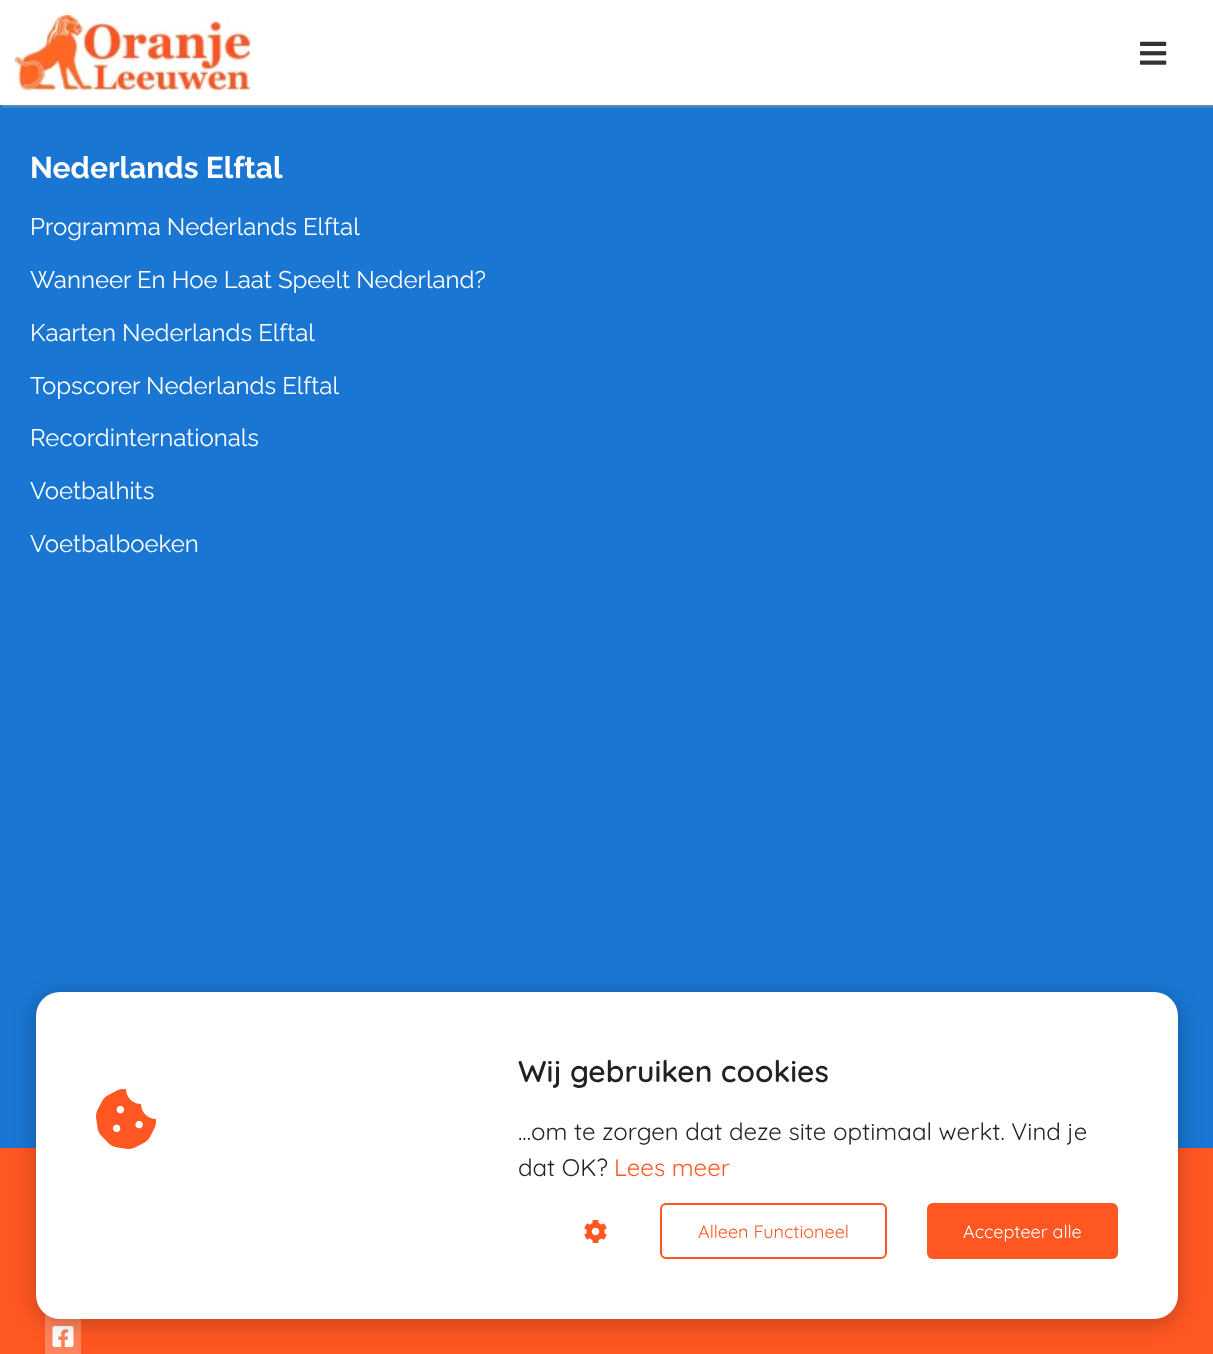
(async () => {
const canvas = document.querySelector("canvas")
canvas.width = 1213
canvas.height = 1354
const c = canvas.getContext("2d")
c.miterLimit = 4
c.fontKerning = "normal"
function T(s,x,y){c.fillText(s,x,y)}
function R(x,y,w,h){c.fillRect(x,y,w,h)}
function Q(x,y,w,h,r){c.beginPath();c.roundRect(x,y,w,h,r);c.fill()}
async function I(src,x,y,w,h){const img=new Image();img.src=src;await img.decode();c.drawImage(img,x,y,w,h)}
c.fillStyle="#1976d2"
R(0,0,1213,1354)
c.fillStyle="#a3a3a391"
c.filter="blur(1px)"
c.beginPath()
c.rect(2,2,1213,105)
c.fill()
c.filter="none"
c.fillStyle="#fff"
R(0,0,1213,105)
await I("1.png",15,15,236,75)
await I("2.png",1140,41,27,24)
c.font="bold 30px Raleway"
T("Nederlands Elftal",30,178)
c.font="24px Raleway"
T("Programma Nederlands Elftal",30,235)
T("Wanneer En Hoe Laat Speelt Nederland?",30,288)
T("Kaarten Nederlands Elftal",30,341)
T("Topscorer Nederlands Elftal",30,394)
T("Recordinternationals",30,446)
T("Voetbalhits",30,499)
T("Voetbalboeken",30,552)
c.fillStyle="#ff5722"
R(0,1148,1213,206)
c.fillStyle="#ff835b"
R(45,1313,36,41)
await I("3.png",52,1326,22,21)
c.fillStyle="#0000003d"
c.filter="blur(11px)"
c.beginPath()
c.roundRect(36,996,1142,327,24)
c.fill()
c.filter="none"
c.fillStyle="#fff"
Q(36,992,1142,327,24)
await I("4.png",96,1089,61,60)
c.font="600 30px Quicksand"
c.fillStyle="#222"
T("Wij gebruiken cookies",518,1082)
c.font="24px Quicksand"
T("...om te zorgen dat deze site optimaal werkt. Vind je",518,1140)
T("dat OK?",518,1176)
c.fillStyle="#ff5722"
T("Lees meer",614,1176)
await I("5.png",584,1219,23,25)
c.beginPath()
c.roundRect(661,1204,225,54,5)
c.strokeStyle="#ff5722"
c.lineWidth=2
c.stroke()
c.font="18px Quicksand"
T("Alleen Functioneel",698,1238)
Q(927,1203,191,56,6)
c.fillStyle="#fff"
T("Accepteer alle",963,1238)
})()
